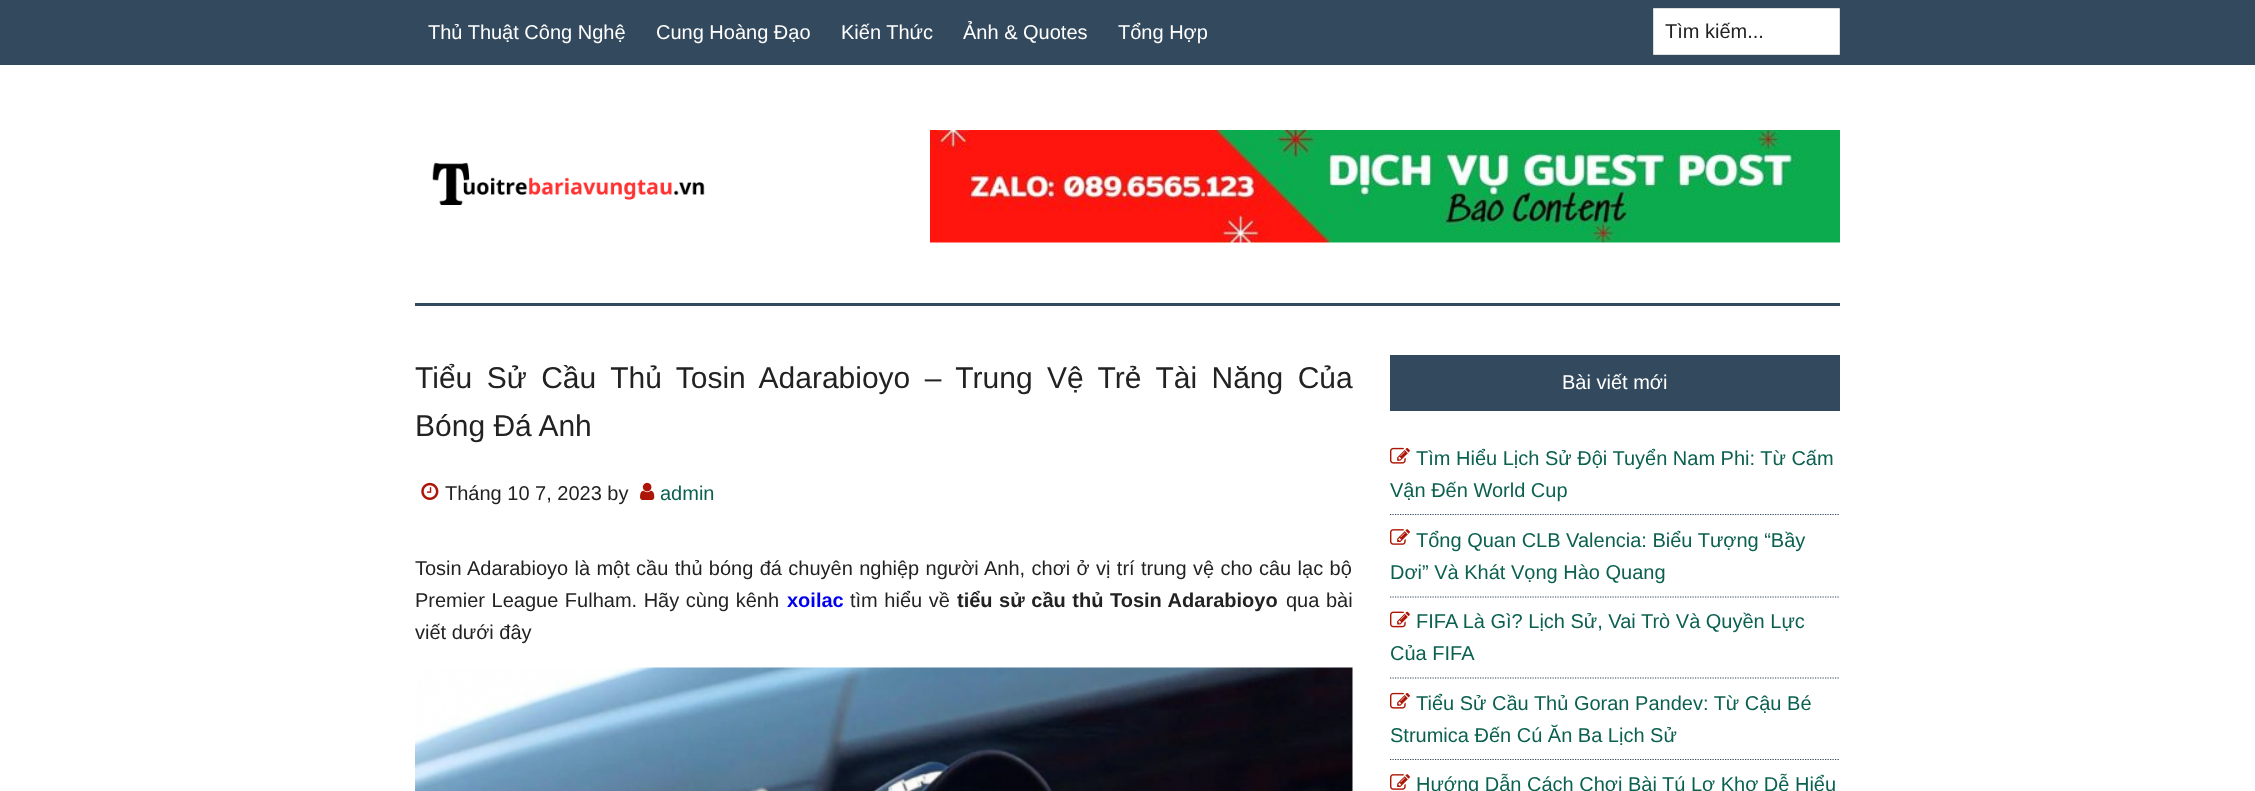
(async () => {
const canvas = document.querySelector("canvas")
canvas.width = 2255
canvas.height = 791
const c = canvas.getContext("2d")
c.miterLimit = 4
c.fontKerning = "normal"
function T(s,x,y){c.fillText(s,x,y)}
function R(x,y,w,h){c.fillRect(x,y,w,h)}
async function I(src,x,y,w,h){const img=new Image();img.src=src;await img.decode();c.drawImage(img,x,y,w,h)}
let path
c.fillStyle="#fff"
R(0,0,2255,791)
c.fillStyle="#33495d"
R(0,0,2255,65)
c.font="20px Liberation Sans"
c.fillStyle="#fff"
T("Thủ Thuật Công Nghệ",428,39)
T("Cung Hoàng Đạo",656,39)
T("Kiến Thức",841,39)
T("Ảnh & Quotes",963,39)
T("Tổng Hợp",1118,39)
c.beginPath()
c.rect(1653.5,8.5,186,46)
c.fill()
c.strokeStyle="#ddd"
c.stroke()
c.fillStyle="#222"
T("Tìm kiếm...",1665,38)
c.fillStyle="#33495d"
R(415,303,1425,3)
await I("1.png",432,162,273,43)
await I("2.png",930,130,910,113)
c.wordSpacing="6.1px"
c.font="30px Liberation Sans"
c.fillStyle="#222"
T("Tiểu Sử Cầu Thủ Tosin Adarabioyo – Trung Vệ Trẻ Tài Năng Của",415,388)
c.wordSpacing="0px"
T("Bóng Đá Anh",415,436)
await I("3.png",421,482,18,18)
c.font="20px Liberation Sans"
T("Tháng 10 7, 2023 by",445,500)
await I("4.png",640,482,15,18)
c.fillStyle="#0b6050"
T("admin",660,500)
c.wordSpacing="0.8px"
c.fillStyle="#222"
T("Tosin Adarabioyo là một cầu thủ bóng đá chuyên nghiệp người Anh, chơi ở vị trí trung vệ cho câu lạc bộ",415,575)
c.wordSpacing="1px"
T("Premier League Fulham. Hãy cùng kênh",415,607)
c.wordSpacing="0px"
c.font="bold 20px Liberation Sans"
c.fillStyle="#00e"
T("xoilac",787,607)
c.wordSpacing="1px"
c.font="20px Liberation Sans"
c.fillStyle="#222"
T("tìm hiểu về",850,607)
c.font="bold 20px Liberation Sans"
T("tiểu sử cầu thủ Tosin Adarabioyo",957,607)
c.font="20px Liberation Sans"
T("qua bài",1286,607)
c.wordSpacing="0px"
T("viết dưới đây",415,639)
await I("5.png",415,667,938,124)
c.fillStyle="#33495d"
R(1390,355,450,56)
c.fillStyle="#fff"
T("Bài viết mới",1562,389)
path = new Path2D("M1390 514.5h450")
c.strokeStyle="#33495d"
c.lineWidth=1.2
c.setLineDash([1.25,1.25])
c.stroke(path)
await I("6.png",1390,447,20,17)
c.fillStyle="#0b6050"
T("Tìm Hiểu Lịch Sử Đội Tuyển Nam Phi: Từ Cấm",1416,465)
T("Vận Đến World Cup",1390,497)
path = new Path2D("M1390 597h450")
c.stroke(path)
await I("7.png",1390,529,20,16)
T("Tổng Quan CLB Valencia: Biểu Tượng “Bầy",1416,547)
T("Dơi” Và Khát Vọng Hào Quang",1390,579)
path = new Path2D("M1390 678h450")
c.stroke(path)
await I("8.png",1390,611,20,17)
T("FIFA Là Gì? Lịch Sử, Vai Trò Và Quyền Lực",1416,628)
T("Của FIFA",1390,660)
path = new Path2D("M1390 759.5h450")
c.stroke(path)
await I("6.png",1390,692,20,17)
T("Tiểu Sử Cầu Thủ Goran Pandev: Từ Cậu Bé",1416,710)
T("Strumica Đến Cú Ăn Ba Lịch Sử",1390,742)
await I("7.png",1390,774,20,16)
T("Hướng Dẫn Cách Chơi Bài Tú Lơ Khơ Dễ Hiểu",1416,791)
})()
